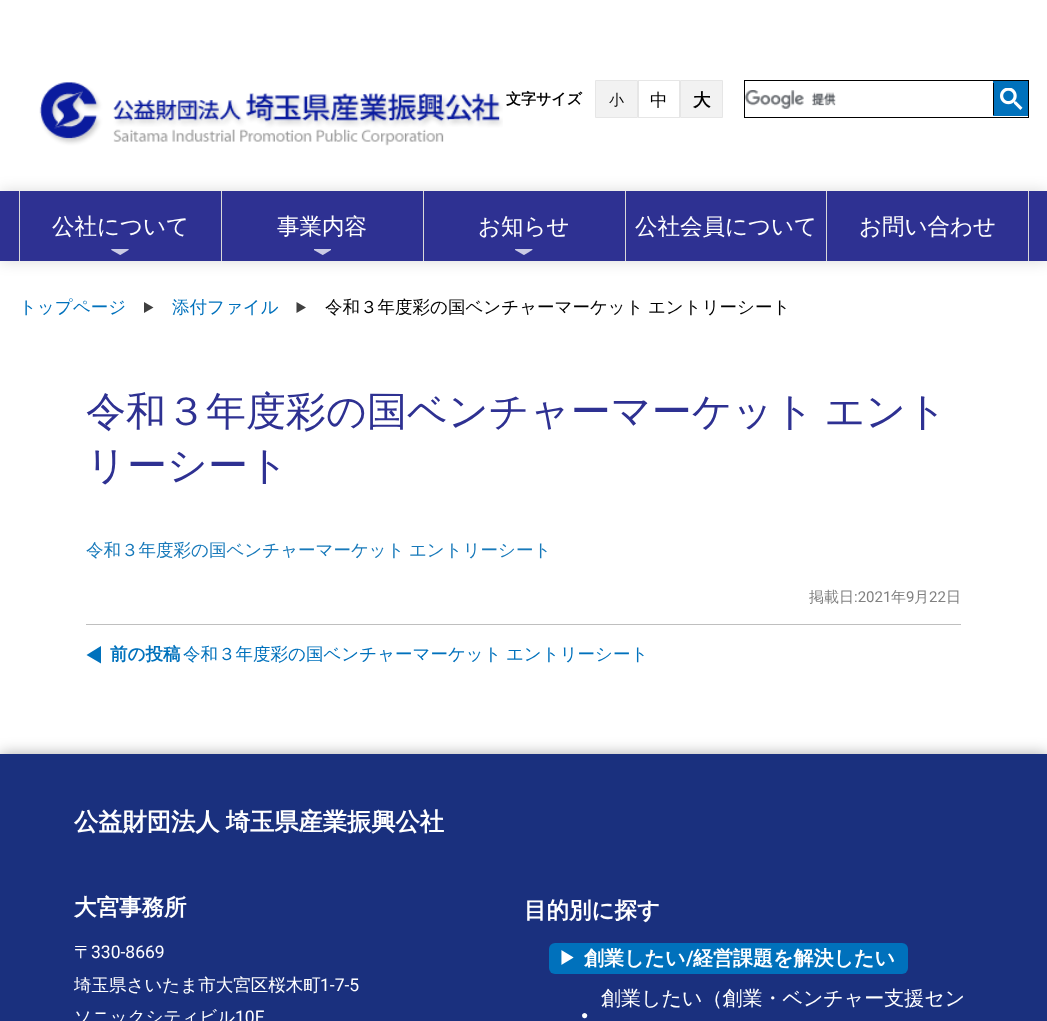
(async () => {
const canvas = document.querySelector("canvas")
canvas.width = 1047
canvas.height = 1021
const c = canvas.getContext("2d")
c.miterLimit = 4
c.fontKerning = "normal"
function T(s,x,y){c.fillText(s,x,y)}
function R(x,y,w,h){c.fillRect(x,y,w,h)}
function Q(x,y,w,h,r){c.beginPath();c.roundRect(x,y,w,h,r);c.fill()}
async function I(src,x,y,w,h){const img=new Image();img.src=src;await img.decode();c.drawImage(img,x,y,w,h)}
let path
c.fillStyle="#fff"
R(0,0,1047,1021)
await I("1.png",39,82,464,64)
c.font="bold 15px WenQuanYi Zen Hei"
c.fillStyle="#000"
T("文字サイズ",506,104)
c.fillStyle="#f2f2f2"
c.beginPath()
c.rect(595.5,80.5,42,37)
c.fill()
c.strokeStyle="#e6e6e6"
c.stroke()
c.font="500 15px WenQuanYi Zen Hei"
c.fillStyle="#000"
T("小",609,105)
c.strokeRect(638.5,80.5,41,37)
c.font="500 17.5px WenQuanYi Zen Hei"
T("中",650,106)
c.fillStyle="#f2f2f2"
c.beginPath()
c.rect(680.5,80.5,42,37)
c.fill()
c.stroke()
c.font="bold 17.5px WenQuanYi Zen Hei"
c.fillStyle="#000"
T("大",693,106)
c.strokeStyle="#000"
c.strokeRect(744.5,80.5,284,37)
await I("2.png",745,90,91,19)
c.fillStyle="#0071bc"
R(993,81,35,35)
c.fillStyle="#000"
R(993,83,1,32)
await I("3.png",1000,88,23,22)
c.fillStyle="#00000026"
c.filter="blur(7.5px)"
c.beginPath()
c.rect(0,191,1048,70)
c.fill()
c.filter="none"
c.fillStyle="#2e3192"
R(0,191,1047,70)
c.fillStyle="#d9d9d9"
R(19,191,1,70)
c.font="500 22.5px WenQuanYi Zen Hei"
c.fillStyle="#fff"
T("公社について",52,234)
await I("4.png",111,249,18,6)
c.fillStyle="#d9d9d9"
R(221,191,1,70)
c.fillStyle="#fff"
T("事業内容",277,234)
await I("5.png",314,249,17,6)
c.fillStyle="#d9d9d9"
R(423,191,1,70)
c.fillStyle="#fff"
T("お知らせ",478,234)
await I("6.png",515,249,18,6)
c.fillStyle="#d9d9d9"
R(625,191,1,70)
c.fillStyle="#fff"
T("公社会員について",635,234)
c.fillStyle="#d9d9d9"
R(1028,191,1,70)
R(826,191,1,70)
c.fillStyle="#fff"
T("お問い合わせ",859,234)
c.font="500 17.5px WenQuanYi Zen Hei"
c.fillStyle="#0071bc"
T("トップページ",19,313)
c.fillStyle="#404040"
path = new Path2D("M153.5 307.5l-9.5-5.5v11z")
c.fill(path)
c.fillStyle="#0071bc"
T("添付ファイル",172,313)
c.fillStyle="#404040"
path = new Path2D("M306 307.5l-9.5-5.5v11z")
c.fill(path)
c.wordSpacing="-1px"
c.fillStyle="#000"
T("令和３年度彩の国ベンチャーマーケット エントリーシート",325,313)
c.wordSpacing="-2px"
c.font="500 40px WenQuanYi Zen Hei"
c.fillStyle="#2e3192"
T("令和３年度彩の国ベンチャーマーケット エント",86,425)
c.wordSpacing="0px"
T("リーシート",86,479)
c.wordSpacing="-1px"
c.font="500 17.5px WenQuanYi Zen Hei"
c.fillStyle="#1779ba"
T("令和３年度彩の国ベンチャーマーケット エントリーシート",86,556)
c.fillStyle="#bfbfbf"
R(86,624,875,1)
c.wordSpacing="0px"
c.font="500 15px WenQuanYi Zen Hei"
c.fillStyle="#808080"
T("掲載日",809,602)
c.font="15px Roboto"
T(":2021",854,602)
c.font="500 15px WenQuanYi Zen Hei"
T("年",891,602)
c.font="15px Roboto"
T("9",906,602)
c.font="500 15px WenQuanYi Zen Hei"
T("月",914,602)
c.font="15px Roboto"
T("22",929,602)
c.font="500 15px WenQuanYi Zen Hei"
T("日",946,602)
c.fillStyle="#0071bc"
path = new Path2D("M86.5 655l14.5-9v17.5z")
c.fill(path)
c.font="bold 17.5px WenQuanYi Zen Hei"
T("前の投稿",110,660)
c.wordSpacing="-1px"
c.font="500 17.5px WenQuanYi Zen Hei"
T("令和３年度彩の国ベンチャーマーケット エントリーシート",183,660)
c.fillStyle="#00000054"
c.filter="blur(7.5px)"
c.beginPath()
c.rect(0,754,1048,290)
c.fill()
c.filter="none"
c.fillStyle="#1a307e"
R(0,754,1047,267)
c.font="bold 24.25px WenQuanYi Zen Hei"
c.fillStyle="#fff"
T("公益財団法人 埼玉県産業振興公社",74,830)
c.wordSpacing="0px"
c.font="bold 22.5px WenQuanYi Zen Hei"
T("大宮事務所",74,915)
c.font="500 17.5px WenQuanYi Zen Hei"
T("〒",74,958)
c.font="17.5px Roboto"
T("330-8669",91,958)
c.font="500 17.5px WenQuanYi Zen Hei"
T("埼玉県さいたま市大宮区桜木町",74,991)
c.font="17.5px Roboto"
T("1-7-5",320,991)
c.font="500 17.5px WenQuanYi Zen Hei"
T("ソニックシティビル",74,1023)
c.font="17.5px Roboto"
T("10F",235,1023)
c.font="bold 22.5px WenQuanYi Zen Hei"
T("目的別に探す",524,918)
c.fillStyle="#0071bc"
Q(549,943,359,31,6)
await I("7.png",561,950,13,15)
c.font="bold 20px WenQuanYi Zen Hei"
c.fillStyle="#fff"
T("創業したい",584,965)
c.font="600 20px Roboto"
T("/",686,965)
c.font="bold 20px WenQuanYi Zen Hei"
T("経営課題を解決したい",693,965)
c.font="500 20px WenQuanYi Zen Hei"
T("創業したい（創業・ベンチャー支援セン",601,1005)
c.font="12px Liberation Sans"
T("●",581,1019)
})()
